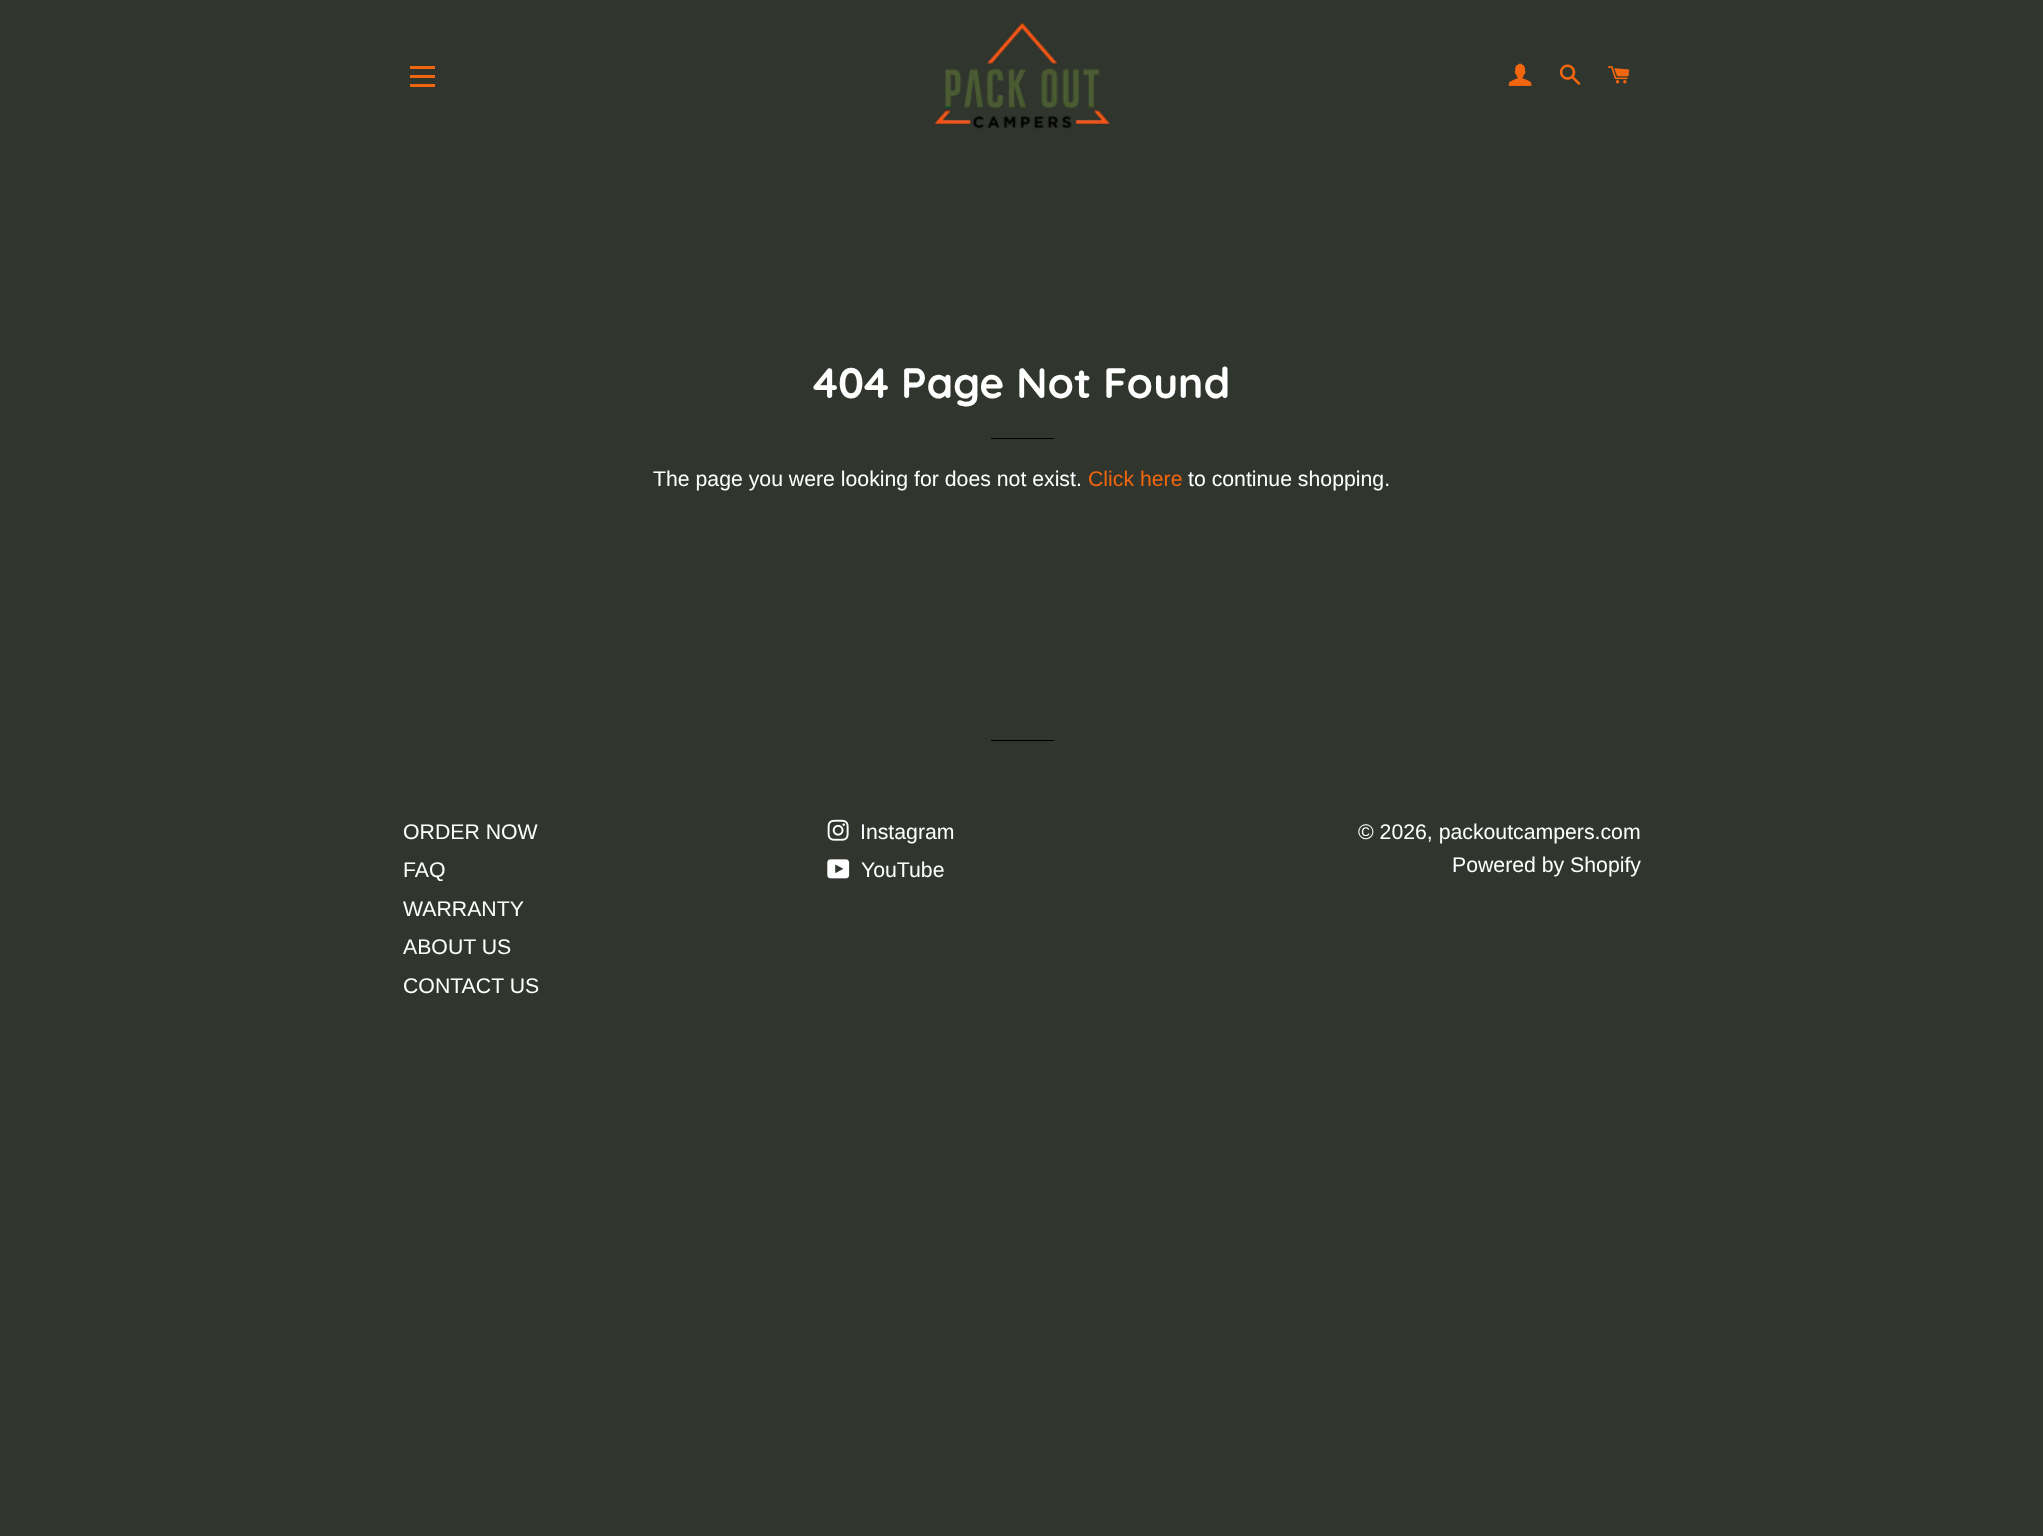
(async () => {
const canvas = document.querySelector("canvas")
canvas.width = 2043
canvas.height = 1536
const c = canvas.getContext("2d")
c.miterLimit = 4
c.fontKerning = "normal"
function T(s,x,y){c.fillText(s,x,y)}
function R(x,y,w,h){c.fillRect(x,y,w,h)}
async function I(src,x,y,w,h){const img=new Image();img.src=src;await img.decode();c.drawImage(img,x,y,w,h)}
c.fillStyle="#30352d"
R(0,0,2043,1536)
c.fillStyle="#f2660f"
R(410,66,25,3)
R(410,75,25,3)
R(410,84,25,3)
await I("1.png",934,22,177,107)
await I("2.png",1508,63,24,23)
await I("3.png",1559,64,22,21)
await I("4.png",1607,66,23,18)
c.font="bold 42.5px Quicksand"
c.fillStyle="#fff"
T("404 Page Not Found",813,398)
c.fillStyle="#000"
R(991,438,63,1)
c.font="21.25px Liberation Sans"
c.fillStyle="#fff"
T("The page you were looking for does not exist.",653,486)
c.fillStyle="#f2660f"
T("Click here",1088,486)
c.fillStyle="#fff"
T("to continue shopping.",1188,486)
c.fillStyle="#000"
R(991,740,63,1)
c.fillStyle="#fff"
T("ORDER NOW",403,839)
T("FAQ",403,877)
T("WARRANTY",403,916)
T("ABOUT US",403,954)
T("CONTACT US",403,993)
await I("5.png",827,819,22,22)
T("Instagram",860,839)
await I("6.png",827,859,23,20)
T("YouTube",861,877)
T("© 2026, packoutcampers.com",1358,839)
T("Powered by Shopify",1452,872)
})()
